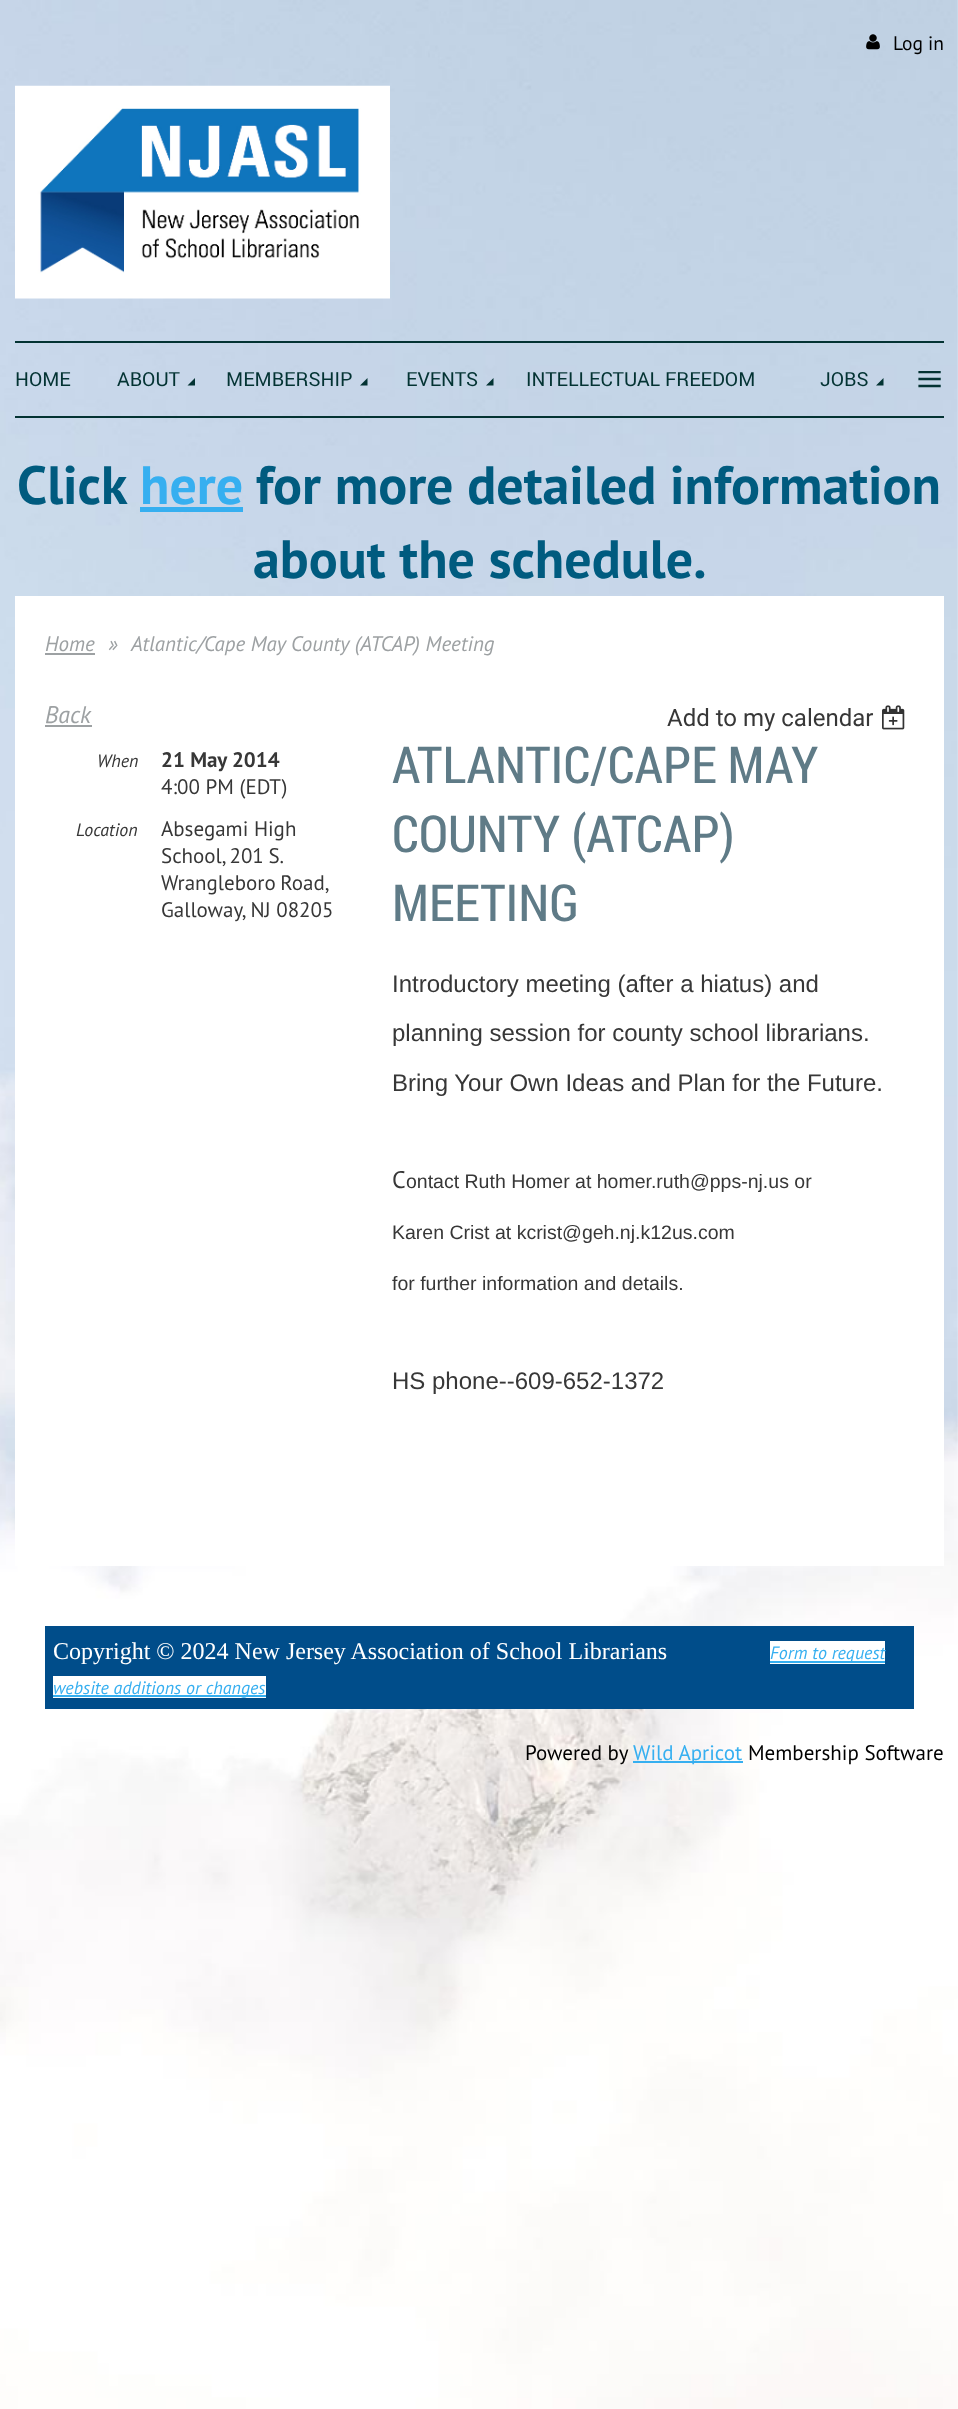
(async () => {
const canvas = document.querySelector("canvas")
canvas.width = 958
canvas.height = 2409
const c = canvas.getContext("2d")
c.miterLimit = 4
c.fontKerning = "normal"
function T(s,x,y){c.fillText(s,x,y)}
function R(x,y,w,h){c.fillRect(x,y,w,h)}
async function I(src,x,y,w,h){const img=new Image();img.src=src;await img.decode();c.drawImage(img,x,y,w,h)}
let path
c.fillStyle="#fff"
R(0,0,958,2409)
await I("1.png",0,0,958,2409)
await I("2.png",866,34,14,16)
c.font="19.5px PT Sans"
c.fillStyle="#000"
T("Log in",893,50)
await I("3.png",15,85,375,214)
c.fillStyle="#033333"
R(15,341,929,2)
R(15,416,929,2)
c.font="19.5px Roboto"
T("HOME",15,386)
T("ABOUT",117,386)
path = new Path2D("M195 385.5h-7.5l7.5-7.5z")
c.fill(path)
T("MEMBERSHIP",226,386)
path = new Path2D("M367.5 385.5h-7.5l7.5-7.5z")
c.fill(path)
T("EVENTS",406,386)
path = new Path2D("M493.5 385.5h-7.5l7.5-7.5z")
c.fill(path)
T("INTELLECTUAL FREEDOM",526,386)
T("JOBS",820,386)
path = new Path2D("M883.5 385.5h-7.5l7.5-7.5z")
c.fill(path)
c.font="48px Liberation Serif"
T("≡",916,395)
c.font="bold 54px PT Sans"
c.fillStyle="#005b7f"
T("Click",17,504)
c.fillStyle="#36aff0"
T("here",140,504)
R(140,507,103,5)
c.fillStyle="#005b7f"
T("for more detailed information",256,504)
T("about the schedule.",253,578)
c.fillStyle="#fff"
R(15,596,929,970)
c.font="italic 21px PT Sans"
c.fillStyle="#9da1a3"
T("Home",45,651)
R(45,653,50,2)
T("»",108,651)
T("Atlantic/Cape May County (ATCAP) Meeting",131,651)
c.font="italic 24px PT Sans"
T("Back",45,723)
R(45,725,47,2)
c.font="24px 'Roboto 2'"
c.fillStyle="#373737"
T("Add to my calendar",667,726)
await I("4.png",882,705,23,25)
c.font="51px Roboto Condensed"
c.fillStyle="#5f7b87"
T("ATLANTIC/CAPE MAY",392,783)
T("COUNTY (ATCAP)",392,852)
T("MEETING",392,921)
c.font="italic 18px PT Sans"
c.fillStyle="#373737"
T("When",97,767)
c.font="bold 21px PT Sans"
T("21 May 2014",161,767)
c.font="21px PT Sans"
T("4:00 PM (EDT)",161,794)
c.font="italic 18px PT Sans"
T("Location",76,836)
c.font="21px PT Sans"
T("Absegami High",161,836)
c.wordSpacing="-1px"
T("School, 201 S.",161,863)
T("Wrangleboro Road,",161,890)
c.wordSpacing="0px"
T("Galloway, NJ 08205",161,917)
c.font="24px Liberation Sans"
T("Introductory meeting (after a hiatus) and",392,992)
T("planning session for county school librarians.",392,1041)
T("Bring Your Own Ideas and Plan for the Future.",392,1091)
c.font="24px PT Sans"
T("C",392,1188)
c.font="19.5px Liberation Sans"
T("ontact Ruth Homer at homer.ruth@pps-nj.us or",406,1188)
T("Karen Crist at kcrist@geh.nj.k12us.com",392,1239)
T("for further information and details.",392,1290)
c.font="24px Liberation Sans"
T("HS phone--609-652-1372",392,1389)
c.fillStyle="#004d8a"
R(45,1626,869,83)
c.font="24px Liberation Serif"
c.fillStyle="#fff"
T("Copyright © 2024 New Jersey Association of School Librarians",53,1659)
R(770,1641,115,23)
c.fillStyle="#36aff0"
R(770,1661,115,2)
c.font="italic 18px PT Sans"
T("Form to request",770,1659)
c.fillStyle="#fff"
R(53,1676,213,22)
c.fillStyle="#36aff0"
R(53,1695,213,2)
T("website additions or changes",53,1694)
c.font="21px PT Sans"
c.fillStyle="#000"
T("Powered by",525,1760)
c.fillStyle="#36aff0"
R(633,1761,110,2)
T("Wild Apricot",633,1760)
c.fillStyle="#000"
T("Membership Software",748,1760)
})()
